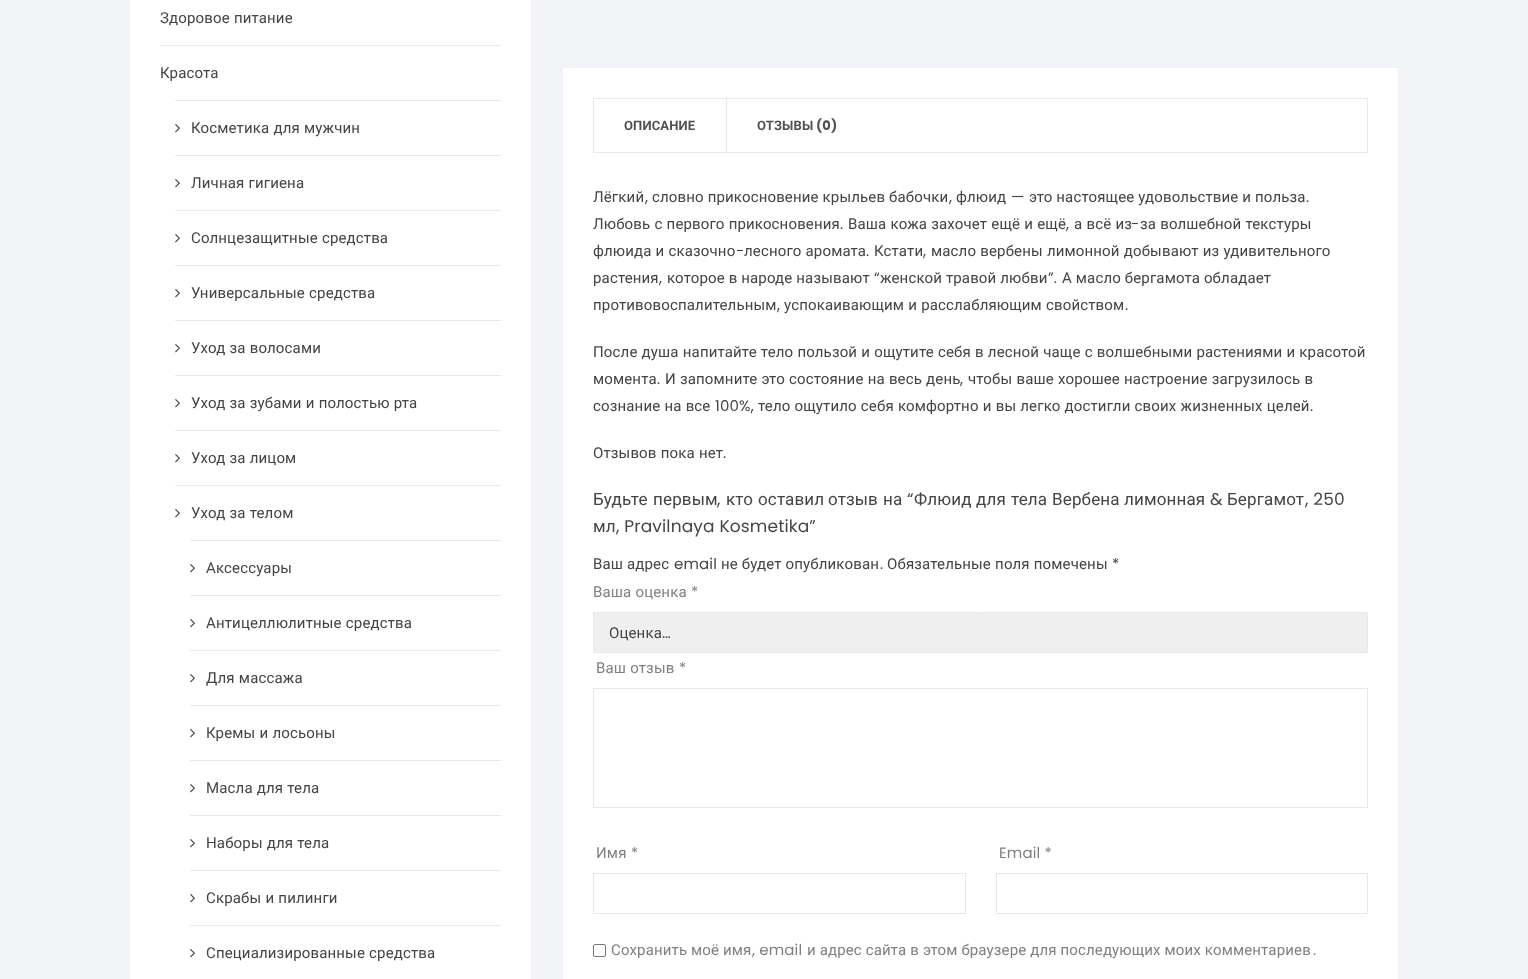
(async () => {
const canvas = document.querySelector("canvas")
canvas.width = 1528
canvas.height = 979
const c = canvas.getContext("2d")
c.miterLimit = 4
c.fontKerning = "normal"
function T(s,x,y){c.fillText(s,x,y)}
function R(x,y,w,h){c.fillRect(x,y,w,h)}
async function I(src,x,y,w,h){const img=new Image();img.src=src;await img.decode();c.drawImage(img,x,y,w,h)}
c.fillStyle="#f3f4f8"
R(0,0,1528,979)
c.fillStyle="#fff"
c.beginPath()
c.rect(129.5,-.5,402,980)
c.fill()
c.strokeStyle="#eef1fd"
c.stroke()
c.fillStyle="#e8e8e8"
R(160,45,341,1)
c.letterSpacing="0.15px"
c.wordSpacing="0.25px"
c.font="15px Roboto"
c.fillStyle="#444"
T("Здоровое питание",160,23)
c.wordSpacing="0px"
T("Красота",160,78)
c.fillStyle="#e8e8e8"
R(175,100,326,1)
R(175,155,326,1)
await I("1.png",175,124,5,9)
c.wordSpacing="0.25px"
c.fillStyle="#444"
T("Косметика для мужчин",191,133)
c.fillStyle="#e8e8e8"
R(175,210,326,1)
await I("1.png",175,179,5,9)
c.fillStyle="#444"
T("Личная гигиена",191,188)
c.fillStyle="#e8e8e8"
R(175,265,326,1)
await I("1.png",175,234,5,9)
c.fillStyle="#444"
T("Солнцезащитные средства",191,243)
c.fillStyle="#e8e8e8"
R(175,320,326,1)
await I("1.png",175,289,5,9)
c.fillStyle="#444"
T("Универсальные средства",191,298)
c.fillStyle="#e8e8e8"
R(175,375,326,1)
await I("1.png",175,344,5,9)
c.fillStyle="#444"
T("Уход за волосами",191,353)
c.fillStyle="#e8e8e8"
R(175,430,326,1)
await I("1.png",175,399,5,9)
c.fillStyle="#444"
T("Уход за зубами и полостью рта",191,408)
c.fillStyle="#e8e8e8"
R(175,485,326,1)
await I("1.png",175,454,5,9)
c.fillStyle="#444"
T("Уход за лицом",191,463)
await I("1.png",175,509,5,9)
T("Уход за телом",191,518)
c.fillStyle="#e8e8e8"
R(190,540,311,1)
R(190,595,311,1)
await I("1.png",190,564,5,9)
c.wordSpacing="0px"
c.fillStyle="#444"
T("Аксессуары",206,573)
c.fillStyle="#e8e8e8"
R(190,650,311,1)
await I("1.png",190,619,5,9)
c.wordSpacing="0.25px"
c.fillStyle="#444"
T("Антицеллюлитные средства",206,628)
c.fillStyle="#e8e8e8"
R(190,705,311,1)
await I("1.png",190,674,5,9)
c.fillStyle="#444"
T("Для массажа",206,683)
c.fillStyle="#e8e8e8"
R(190,760,311,1)
await I("1.png",190,729,5,9)
c.fillStyle="#444"
T("Кремы и лосьоны",206,738)
c.fillStyle="#e8e8e8"
R(190,815,311,1)
await I("1.png",190,784,5,9)
c.fillStyle="#444"
T("Масла для тела",206,793)
c.fillStyle="#e8e8e8"
R(190,870,311,1)
await I("1.png",190,839,5,9)
c.fillStyle="#444"
T("Наборы для тела",206,848)
c.fillStyle="#e8e8e8"
R(190,925,311,1)
await I("1.png",190,894,5,9)
c.fillStyle="#444"
T("Скрабы и пилинги",206,903)
await I("1.png",190,949,5,9)
T("Специализированные средства",206,958)
c.fillStyle="#fff"
c.beginPath()
c.rect(562.5,67.5,836,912)
c.fill()
c.stroke()
c.strokeStyle="#e8e8e8"
c.strokeRect(593.5,98.5,774,54)
c.fillStyle="#e8e8e8"
R(726,99,1,53)
c.wordSpacing="0px"
c.font="bold 13px Roboto"
c.fillStyle="#515151"
T("ОПИСАНИЕ",624,130)
T("ОТЗЫВЫ",757,130)
c.font="bold 13px Poppins"
T("(0)",816,130)
c.font="15px Roboto"
c.fillStyle="#444"
T("Лёгкий",593,202)
T("словно прикосновение крыльев бабочки",652,202)
T("флюид",956,202)
c.font="15px Poppins"
T("—",1011,202)
c.font="15px Roboto"
T("это настоящее удовольствие и польза",1029,202)
c.font="15px Poppins"
T(",",645,202)
T(",",949,202)
T(".",1306,202)
c.wordSpacing="0.25px"
c.font="15px Roboto"
T("Любовь с первого прикосновения",593,229)
T("Ваша кожа захочет ещё и ещё",848,229)
T("а всё из",1074,229)
c.wordSpacing="0px"
c.font="15px Poppins"
T("-",1131,229)
c.wordSpacing="0.25px"
c.font="15px Roboto"
T("за волшебной текстуры",1140,229)
c.wordSpacing="0px"
c.font="15px Poppins"
T(".",840,229)
T(",",1066,229)
c.wordSpacing="0.25px"
c.font="15px Roboto"
T("флюида и сказочно",593,256)
c.wordSpacing="0px"
c.font="15px Poppins"
T("-",736,256)
c.wordSpacing="0.25px"
c.font="15px Roboto"
T("лесного аромата",744,256)
c.wordSpacing="0px"
T("Кстати",874,256)
c.wordSpacing="0.25px"
T("масло вербены лимонной добывают из удивительного",931,256)
c.wordSpacing="0px"
c.font="15px Poppins"
T(".",866,256)
T(",",923,256)
c.font="15px Roboto"
T("растения",593,283)
c.font="15px Poppins"
T(",",659,283)
c.font="15px Roboto"
T("которое в народе называют",667,283)
c.font="15px Poppins"
T("“",874,283)
c.font="15px Roboto"
T("женской травой любви",880,283)
c.font="15px Poppins"
T("”.",1048,283)
c.font="15px Roboto"
T("А масло бергамота обладает",1062,283)
T("противовоспалительным",593,310)
c.font="15px Poppins"
T(",",777,310)
c.wordSpacing="0.25px"
c.font="15px Roboto"
T("успокаивающим и расслабляющим свойством",784,310)
c.wordSpacing="0px"
c.font="15px Poppins"
T(".",1125,310)
c.wordSpacing="0.25px"
c.font="15px Roboto"
T("После душа напитайте тело пользой и ощутите себя в лесной чаще с волшебными растениями и красотой",593,357)
c.wordSpacing="0px"
T("момента",593,384)
c.font="15px Poppins"
T(".",657,384)
c.wordSpacing="0.25px"
c.font="15px Roboto"
T("И запомните это состояние на весь день",665,384)
c.wordSpacing="0px"
c.font="15px Poppins"
T(",",960,384)
c.wordSpacing="0.25px"
c.font="15px Roboto"
T("чтобы ваше хорошее настроение загрузилось в",968,384)
T("сознание на все",593,411)
c.wordSpacing="0px"
c.font="15px Poppins"
T("100%,",715,411)
c.wordSpacing="0.25px"
c.font="15px Roboto"
T("тело ощутило себя комфортно и вы легко достигли своих жизненных целей",758,411)
c.wordSpacing="0px"
c.font="15px Poppins"
T(".",1310,411)
c.wordSpacing="0.25px"
c.font="15px Roboto"
T("Отзывов пока нет",593,458)
c.wordSpacing="0px"
c.font="15px Poppins"
T(".",723,458)
c.font="17px Roboto"
T("Будьте",593,505)
T("первым",653,505)
c.font="17px Poppins"
T(",",717,505)
c.font="17px Roboto"
T("кто",726,505)
T("оставил",758,505)
T("отзыв",828,505)
T("на",883,505)
c.font="17px Poppins"
T("“",907,505)
c.font="17px Roboto"
T("Флюид",914,505)
T("для",976,505)
T("тела",1011,505)
T("Вербена",1052,505)
T("лимонная",1124,505)
c.font="17px Poppins"
T("&",1210,505)
c.font="17px Roboto"
T("Бергамот",1227,505)
c.font="17px Poppins"
T(", 250",1305,505)
c.font="17px Roboto"
T("мл",593,532)
c.font="17px Poppins"
T(", Pravilnaya Kosmetika”",616,532)
c.font="15px Roboto"
T("Ваш адрес",593,569)
c.font="15px Poppins"
T("email",674,569)
c.font="15px Roboto"
T("не будет опубликован",721,569)
c.wordSpacing="0.25px"
T("Обязательные поля помечены",887,569)
c.wordSpacing="0px"
c.font="15px Poppins"
T("*",1112,569)
T(".",880,569)
c.wordSpacing="0.25px"
c.font="15px Roboto"
c.fillStyle="#808080"
T("Ваша оценка",593,597)
c.wordSpacing="0px"
c.font="15px Poppins"
T("*",691,597)
c.fillStyle="#efefef"
c.beginPath()
c.rect(593.5,612.5,774,40)
c.fill()
c.stroke()
c.font="15px Roboto"
c.fillStyle="#444"
T("Оценка",609,638)
c.font="15px Poppins"
T("…",662,638)
c.wordSpacing="0.25px"
c.font="15px Roboto"
c.fillStyle="#808080"
T("Ваш отзыв",596,673)
c.wordSpacing="0px"
c.font="15px Poppins"
T("*",679,673)
c.strokeRect(593.5,688.5,774,119)
c.font="15px Roboto"
T("Имя",596,858)
c.font="15px Poppins"
T("*",631,858)
c.strokeRect(593.5,873.5,372,40)
T("Email *",999,858)
c.strokeRect(996.5,873.5,371,40)
c.beginPath()
c.roundRect(593.5,944.5,12,12,1.5)
c.strokeStyle="#767676"
c.stroke()
c.font="15px Roboto"
T("Сохранить моё имя",611,955)
c.font="15px Poppins"
T(", email",752,955)
c.font="15px Roboto"
T("и адрес сайта в этом браузере для последующих моих комментариев",807,955)
c.font="15px Poppins"
T(".",1313,955)
})()
